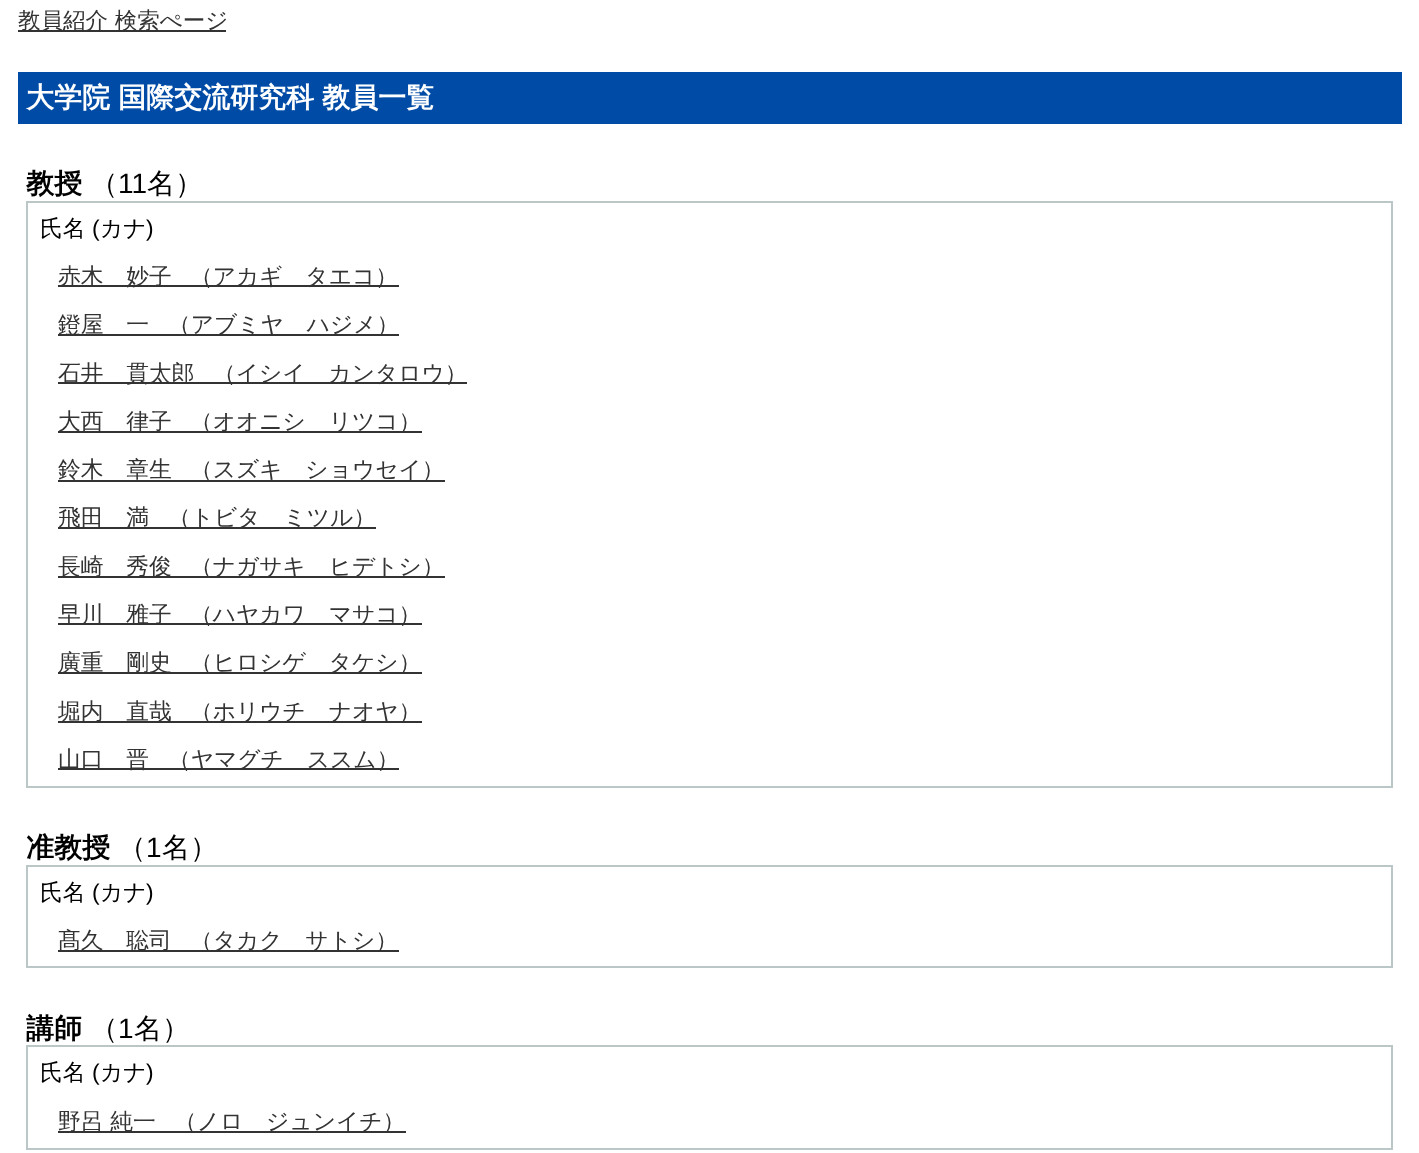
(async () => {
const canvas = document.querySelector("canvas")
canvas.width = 1419
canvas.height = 1153
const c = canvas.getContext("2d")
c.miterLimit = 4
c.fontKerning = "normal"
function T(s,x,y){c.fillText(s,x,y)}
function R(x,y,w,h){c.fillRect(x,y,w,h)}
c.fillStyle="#fff"
R(0,0,1419,1153)
c.fillStyle="#333"
R(18,30,208,2)
c.font="500 22.5px WenQuanYi Zen Hei"
T("教員紹介 検索ぺージ",18,28)
c.fillStyle="#004ba5"
R(18,72,1384,52)
c.font="bold 28px WenQuanYi Zen Hei"
c.fillStyle="#fff"
T("大学院",26,107)
T("国際交流研究科",118,107)
T("教員一覧",322,107)
c.fillStyle="#000"
T("教授",26,193)
c.font="500 28px WenQuanYi Zen Hei"
T("（",90,193)
c.font="28px Liberation Sans"
T("11",118,193)
c.font="500 28px WenQuanYi Zen Hei"
T("名）",147,193)
c.strokeStyle="#bbc6c7"
c.lineWidth=2
c.strokeRect(27,202,1365,585)
c.font="500 22.75px WenQuanYi Zen Hei"
T("氏名",40,236)
c.font="22.75px Liberation Sans"
T("(",92,236)
c.font="500 22.75px WenQuanYi Zen Hei"
T("カナ",100,236)
c.font="22.75px Liberation Sans"
T(")",146,236)
c.fillStyle="#333"
R(58,285,341,2)
c.font="500 22.75px WenQuanYi Zen Hei"
T("赤木　妙子",58,284)
T("（アカギ　タエコ）",190,284)
R(58,334,341,2)
T("鐙屋　一",58,332)
T("（アブミヤ　ハジメ）",168,332)
R(58,382,409,2)
T("石井　貫太郎",58,381)
T("（イシイ　カンタロウ）",213,381)
R(58,431,364,2)
T("大西　律子",58,429)
T("（オオニシ　リツコ）",190,429)
R(58,480,387,2)
T("鈴木　章生",58,477)
T("（スズキ　ショウセイ）",190,477)
R(58,527,318,2)
T("飛田　満",58,525)
T("（トビタ　ミツル）",168,525)
R(58,576,387,2)
T("長崎　秀俊",58,574)
T("（ナガサキ　ヒデトシ）",190,574)
R(58,623,364,2)
T("早川　雅子",58,622)
T("（ハヤカワ　マサコ）",190,622)
R(58,672,364,2)
T("廣重　剛史",58,670)
T("（ヒロシゲ　タケシ）",190,670)
R(58,721,364,2)
T("堀内　直哉",58,719)
T("（ホリウチ　ナオヤ）",190,719)
R(58,768,341,2)
T("山口　晋",58,767)
T("（ヤマグチ　ススム）",168,767)
c.font="bold 28px WenQuanYi Zen Hei"
c.fillStyle="#000"
T("准教授",26,857)
c.font="500 28px WenQuanYi Zen Hei"
T("（",118,857)
c.font="28px Liberation Sans"
T("1",146,857)
c.font="500 28px WenQuanYi Zen Hei"
T("名）",162,857)
c.strokeRect(27,866,1365,101)
c.font="500 22.75px WenQuanYi Zen Hei"
T("氏名",40,900)
c.font="22.75px Liberation Sans"
T("(",92,900)
c.font="500 22.75px WenQuanYi Zen Hei"
T("カナ",100,900)
c.font="22.75px Liberation Sans"
T(")",146,900)
c.fillStyle="#333"
R(58,950,341,2)
c.font="500 22.75px WenQuanYi Zen Hei"
T("髙久　聡司",58,948)
T("（タカク　サトシ）",190,948)
c.font="bold 28px WenQuanYi Zen Hei"
c.fillStyle="#000"
T("講師",26,1038)
c.font="500 28px WenQuanYi Zen Hei"
T("（",90,1038)
c.font="28px Liberation Sans"
T("1",118,1038)
c.font="500 28px WenQuanYi Zen Hei"
T("名）",134,1038)
c.strokeRect(27,1046,1365,103)
c.font="500 22.75px WenQuanYi Zen Hei"
T("氏名",40,1080)
c.font="22.75px Liberation Sans"
T("(",92,1080)
c.font="500 22.75px WenQuanYi Zen Hei"
T("カナ",100,1080)
c.font="22.75px Liberation Sans"
T(")",146,1080)
c.fillStyle="#333"
R(58,1131,348,2)
c.font="500 22.75px WenQuanYi Zen Hei"
T("野呂 純一",58,1129)
T("（ノロ　ジュンイチ）",174,1129)
})()
